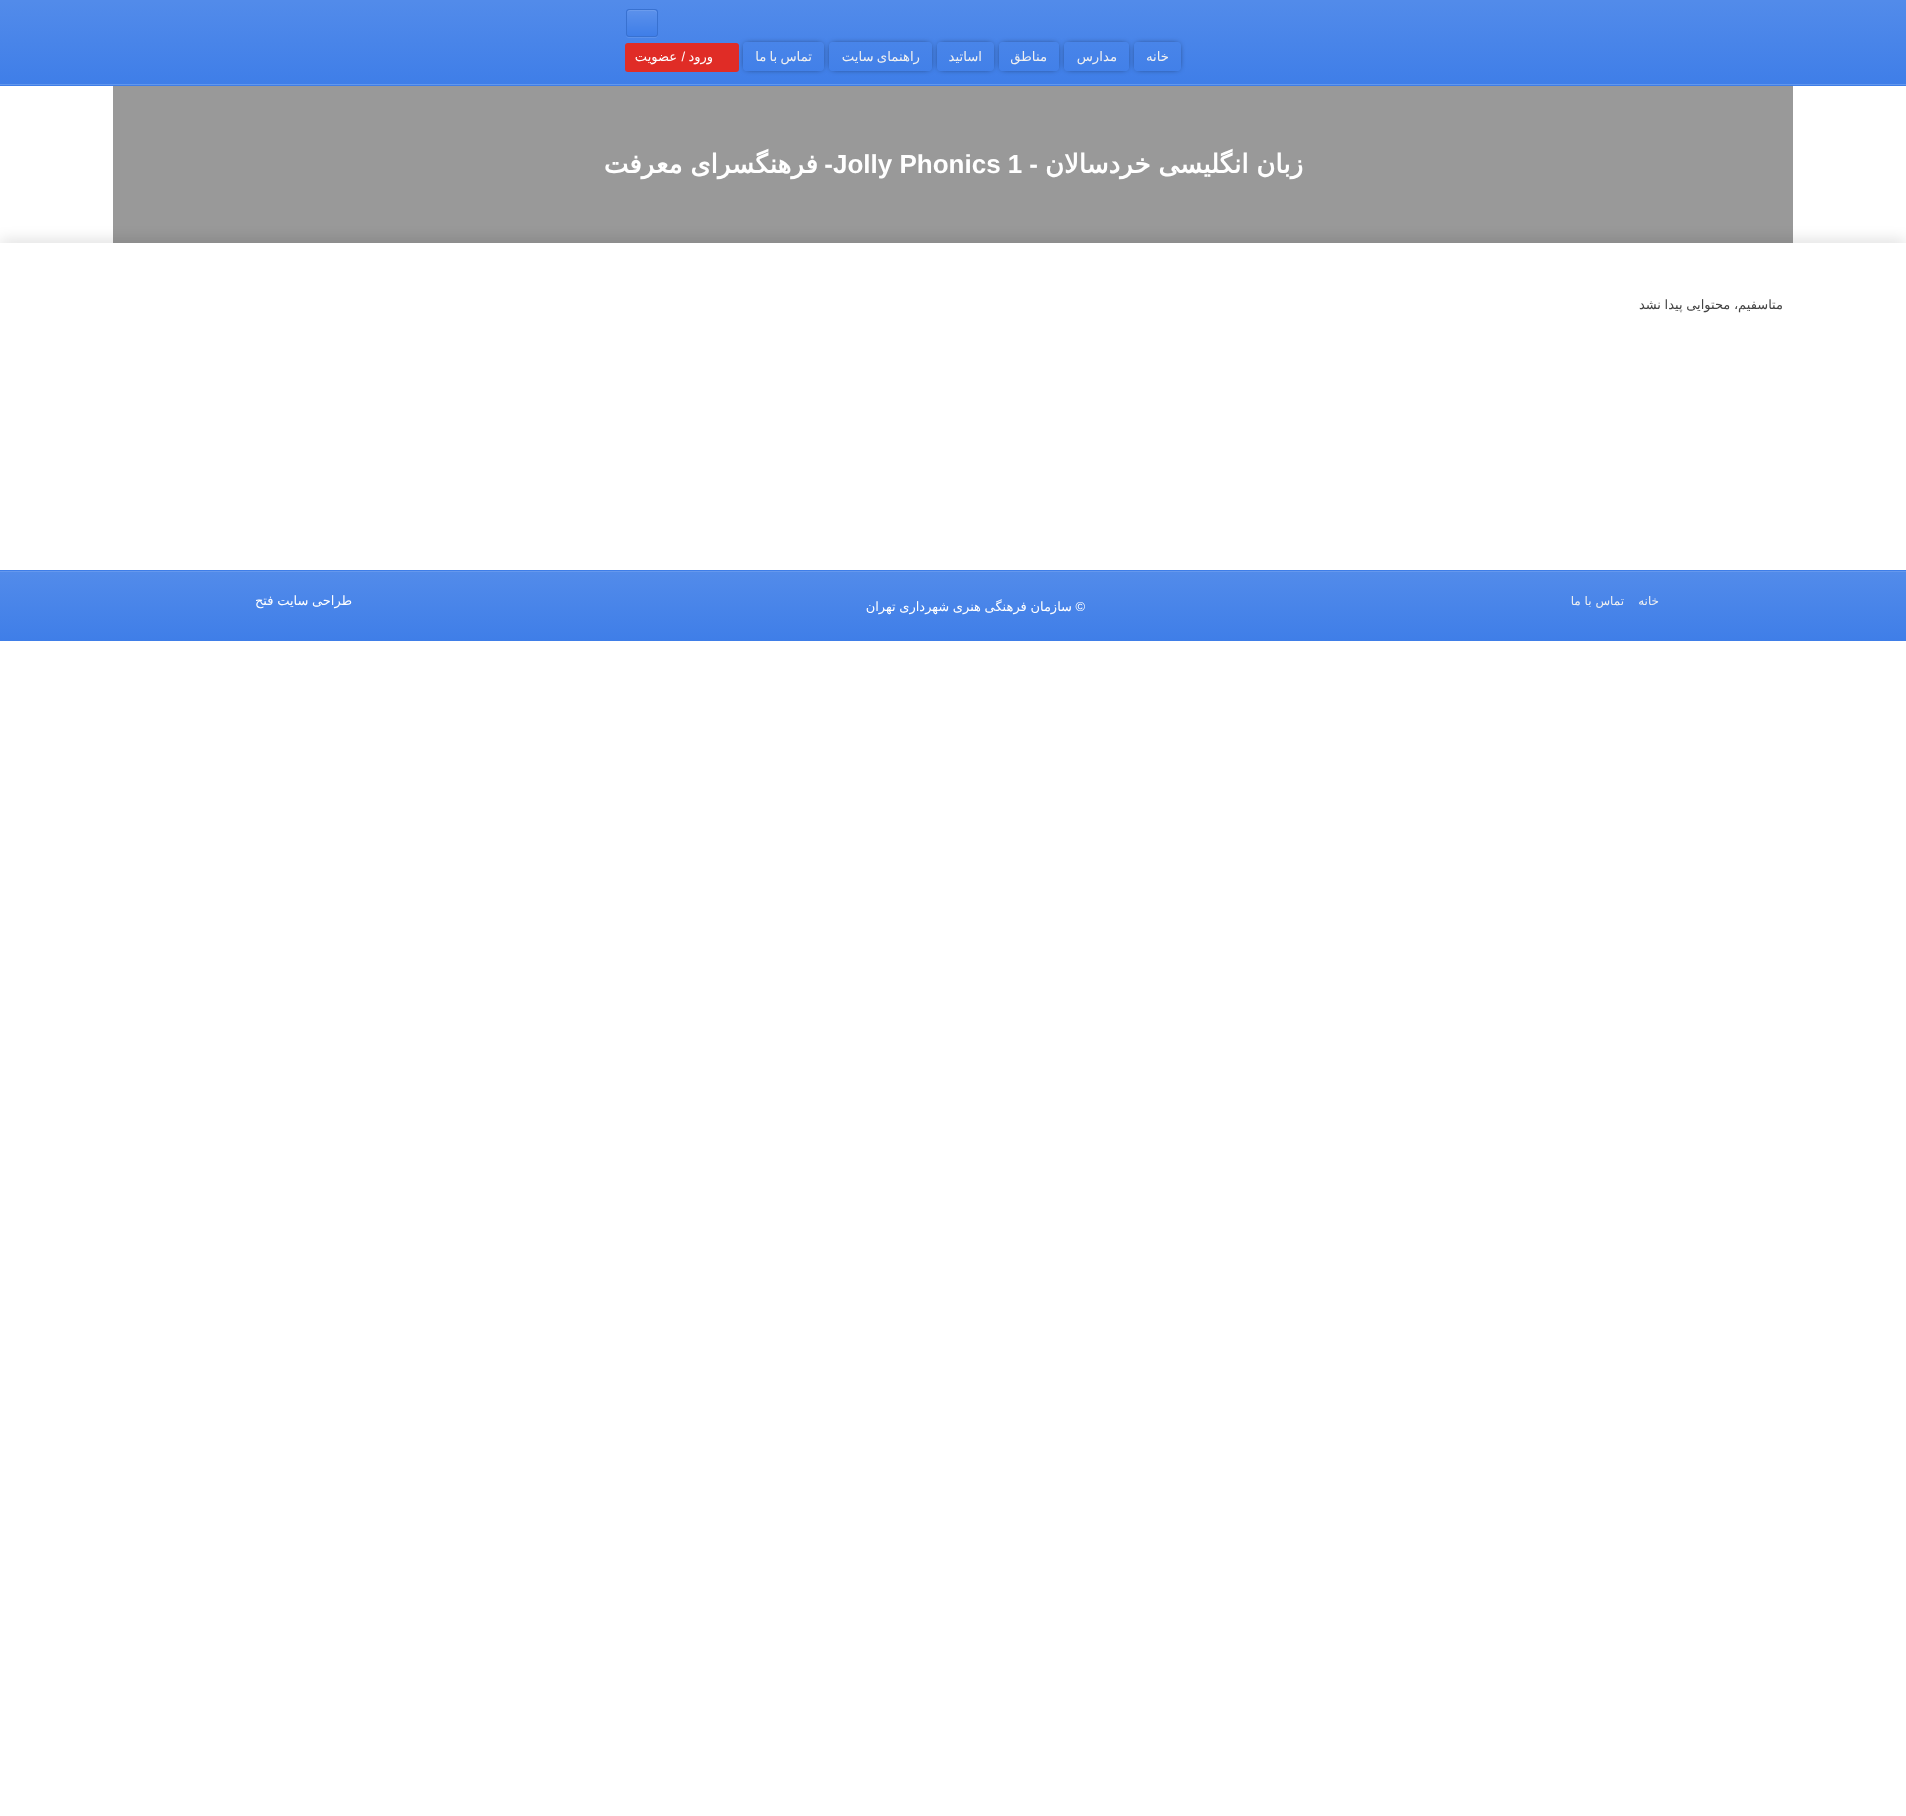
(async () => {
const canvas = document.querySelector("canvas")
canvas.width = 1906
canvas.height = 1816
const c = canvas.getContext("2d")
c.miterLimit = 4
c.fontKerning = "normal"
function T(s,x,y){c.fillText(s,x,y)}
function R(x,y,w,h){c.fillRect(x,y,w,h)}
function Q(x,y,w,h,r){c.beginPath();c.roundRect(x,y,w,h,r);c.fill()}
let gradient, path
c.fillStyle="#fff"
R(0,0,1906,1816)
gradient = c.createLinearGradient(953,1,953,84)
gradient.addColorStop(0,"#528bea")
gradient.addColorStop(1,"#3f7ee8")
c.fillStyle = gradient
R(0,1,1906,83)
c.fillStyle="#528bea"
R(0,0,1906,1)
c.fillStyle="#6397ec"
R(0,84,1906,1)
c.save()
path = new Path2D("M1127 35h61v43h-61zm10 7h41c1.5 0 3 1.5 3 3v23c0 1.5-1.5 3-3 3h-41c-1.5 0-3-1.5-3-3v-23c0-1.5 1.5-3 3-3z")
c.clip(path,"evenodd")
c.fillStyle="#000"
c.filter="blur(3px)"
c.beginPath()
c.rect(1137,45,41,23)
c.fill()
c.filter="none"
c.restore()
c.direction="rtl"
c.font="13.25px DejaVu Sans"
c.fillStyle="#f0f0f0"
T("خانه",1169,61)
c.save()
path = new Path2D("M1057 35h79v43h-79zm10 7h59c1.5 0 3 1.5 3 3v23c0 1.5-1.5 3-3 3h-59c-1.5 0-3-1.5-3-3v-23c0-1.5 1.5-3 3-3z")
c.clip(path,"evenodd")
c.fillStyle="#000"
c.filter="blur(3px)"
c.beginPath()
c.rect(1067,45,59,23)
c.fill()
c.filter="none"
c.restore()
T("مدارس",1117,61)
c.save()
path = new Path2D("M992 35h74v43h-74zm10 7h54c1.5 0 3 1.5 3 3v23c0 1.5-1.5 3-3 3h-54c-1.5 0-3-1.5-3-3v-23c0-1.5 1.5-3 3-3z")
c.clip(path,"evenodd")
c.fillStyle="#000"
c.filter="blur(3px)"
c.beginPath()
c.rect(1002,45,54,23)
c.fill()
c.filter="none"
c.restore()
T("مناطق",1047,61)
c.save()
path = new Path2D("M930 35h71v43h-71zm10 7h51c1.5 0 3 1.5 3 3v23c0 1.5-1.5 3-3 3h-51c-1.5 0-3-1.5-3-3v-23c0-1.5 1.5-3 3-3z")
c.clip(path,"evenodd")
c.fillStyle="#000"
c.filter="blur(3px)"
c.beginPath()
c.rect(940,45,51,23)
c.fill()
c.filter="none"
c.restore()
T("اساتید",982,61)
c.save()
path = new Path2D("M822 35h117v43h-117zm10 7h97c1.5 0 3 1.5 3 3v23c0 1.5-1.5 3-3 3h-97c-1.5 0-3-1.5-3-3v-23c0-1.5 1.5-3 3-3z")
c.clip(path,"evenodd")
c.fillStyle="#000"
c.filter="blur(3px)"
c.beginPath()
c.rect(832,45,97,23)
c.fill()
c.filter="none"
c.restore()
c.wordSpacing="-1px"
T("راهنمای سایت",920,61)
c.save()
path = new Path2D("M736 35h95v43h-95zm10 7h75c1.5 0 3 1.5 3 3v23c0 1.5-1.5 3-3 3h-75c-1.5 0-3-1.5-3-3v-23c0-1.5 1.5-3 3-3z")
c.clip(path,"evenodd")
c.fillStyle="#000"
c.filter="blur(3px)"
c.beginPath()
c.rect(746,45,75,23)
c.fill()
c.filter="none"
c.restore()
T("تماس با ما",812,61)
c.fillStyle="#5c91eb"
path = new Path2D("M626 34c0 5 3.5 4 7.5 4h17c4 0 7.5 1 7.5-4c0 1.5-1.5 3-3 3h-26c-1.5 0-3-1.5-3-3z")
c.fill(path)
c.fillStyle="#3f7ee8"
Q(626,9,32,28,3)
c.beginPath()
c.roundRect(626.5,9.5,31,27,2.5)
c.strokeStyle="#0000001a"
c.stroke()
gradient = c.createLinearGradient(642,10,642,36)
gradient.addColorStop(0,"#ffffff26")
gradient.addColorStop(1,"#ffffff00")
c.fillStyle = gradient
Q(627,10,30,26,3)
c.fillStyle="#ffffff1a"
path = new Path2D("M630 11h20c5.5 0 7 .5 7 4v-2c0-1.5-1.5-3-3-3h-24c-1.5 0-3 1.5-3 3c.5-1 1.5-2 3-2z")
c.fill(path)
c.fillStyle="#e02c26"
Q(625,43,114,29,3)
c.wordSpacing="0px"
c.font="13px DejaVu Sans"
c.fillStyle="#fff"
T("ورود",713,61)
c.font="13px Liberation Sans"
T("/",685,61)
c.font="13px DejaVu Sans"
T("عضویت",677,61)
c.fillStyle="#3f7ee8"
R(0,85,1906,1)
c.fillStyle="#999"
R(113,86,1680,157)
c.wordSpacing="-0.5px"
c.font="bold 26px DejaVu Sans"
c.fillStyle="#fff"
T("زبان انگلیسی خردسالان",1303,173)
c.wordSpacing="0px"
c.font="bold 26px Liberation Sans"
T("-",1038,173)
c.direction="ltr"
T("Jolly Phonics 1",833,173)
c.direction="rtl"
T("-",833,173)
c.wordSpacing="-0.5px"
c.font="bold 26px DejaVu Sans"
T("فرهنگسرای معرفت",818,173)
c.save()
c.beginPath()
c.rect(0,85,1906,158)
c.clip()
c.fillStyle="#0000004d"
c.filter="blur(7.5px)"
c.beginPath()
c.rect(0,243,1906,5)
c.fill()
c.filter="none"
c.restore()
c.font="13px DejaVu Sans"
c.fillStyle="#444"
T("متاسفیم، محتوایی پیدا نشد",1783,309)
gradient = c.createLinearGradient(953,572,953,641)
gradient.addColorStop(0,"#528bea")
gradient.addColorStop(1,"#3f7ee8")
c.fillStyle = gradient
R(0,572,1906,69)
c.fillStyle="#6598ed"
R(0,571,1906,1)
c.fillStyle="#3f7ee8"
R(0,570,1906,1)
c.wordSpacing="0px"
c.font="12px DejaVu Sans"
c.fillStyle="#f0f0f0"
T("خانه",1659,605)
T("تماس با ما",1624,605)
c.font="13px Liberation Sans"
c.fillStyle="#fff"
T("©",1085,611)
c.wordSpacing="-0.5px"
c.font="13px DejaVu Sans"
T("سازمان فرهنگی هنری شهرداری تهران",1072,611)
T("طراحی سایت فتح",352,605)
})()
